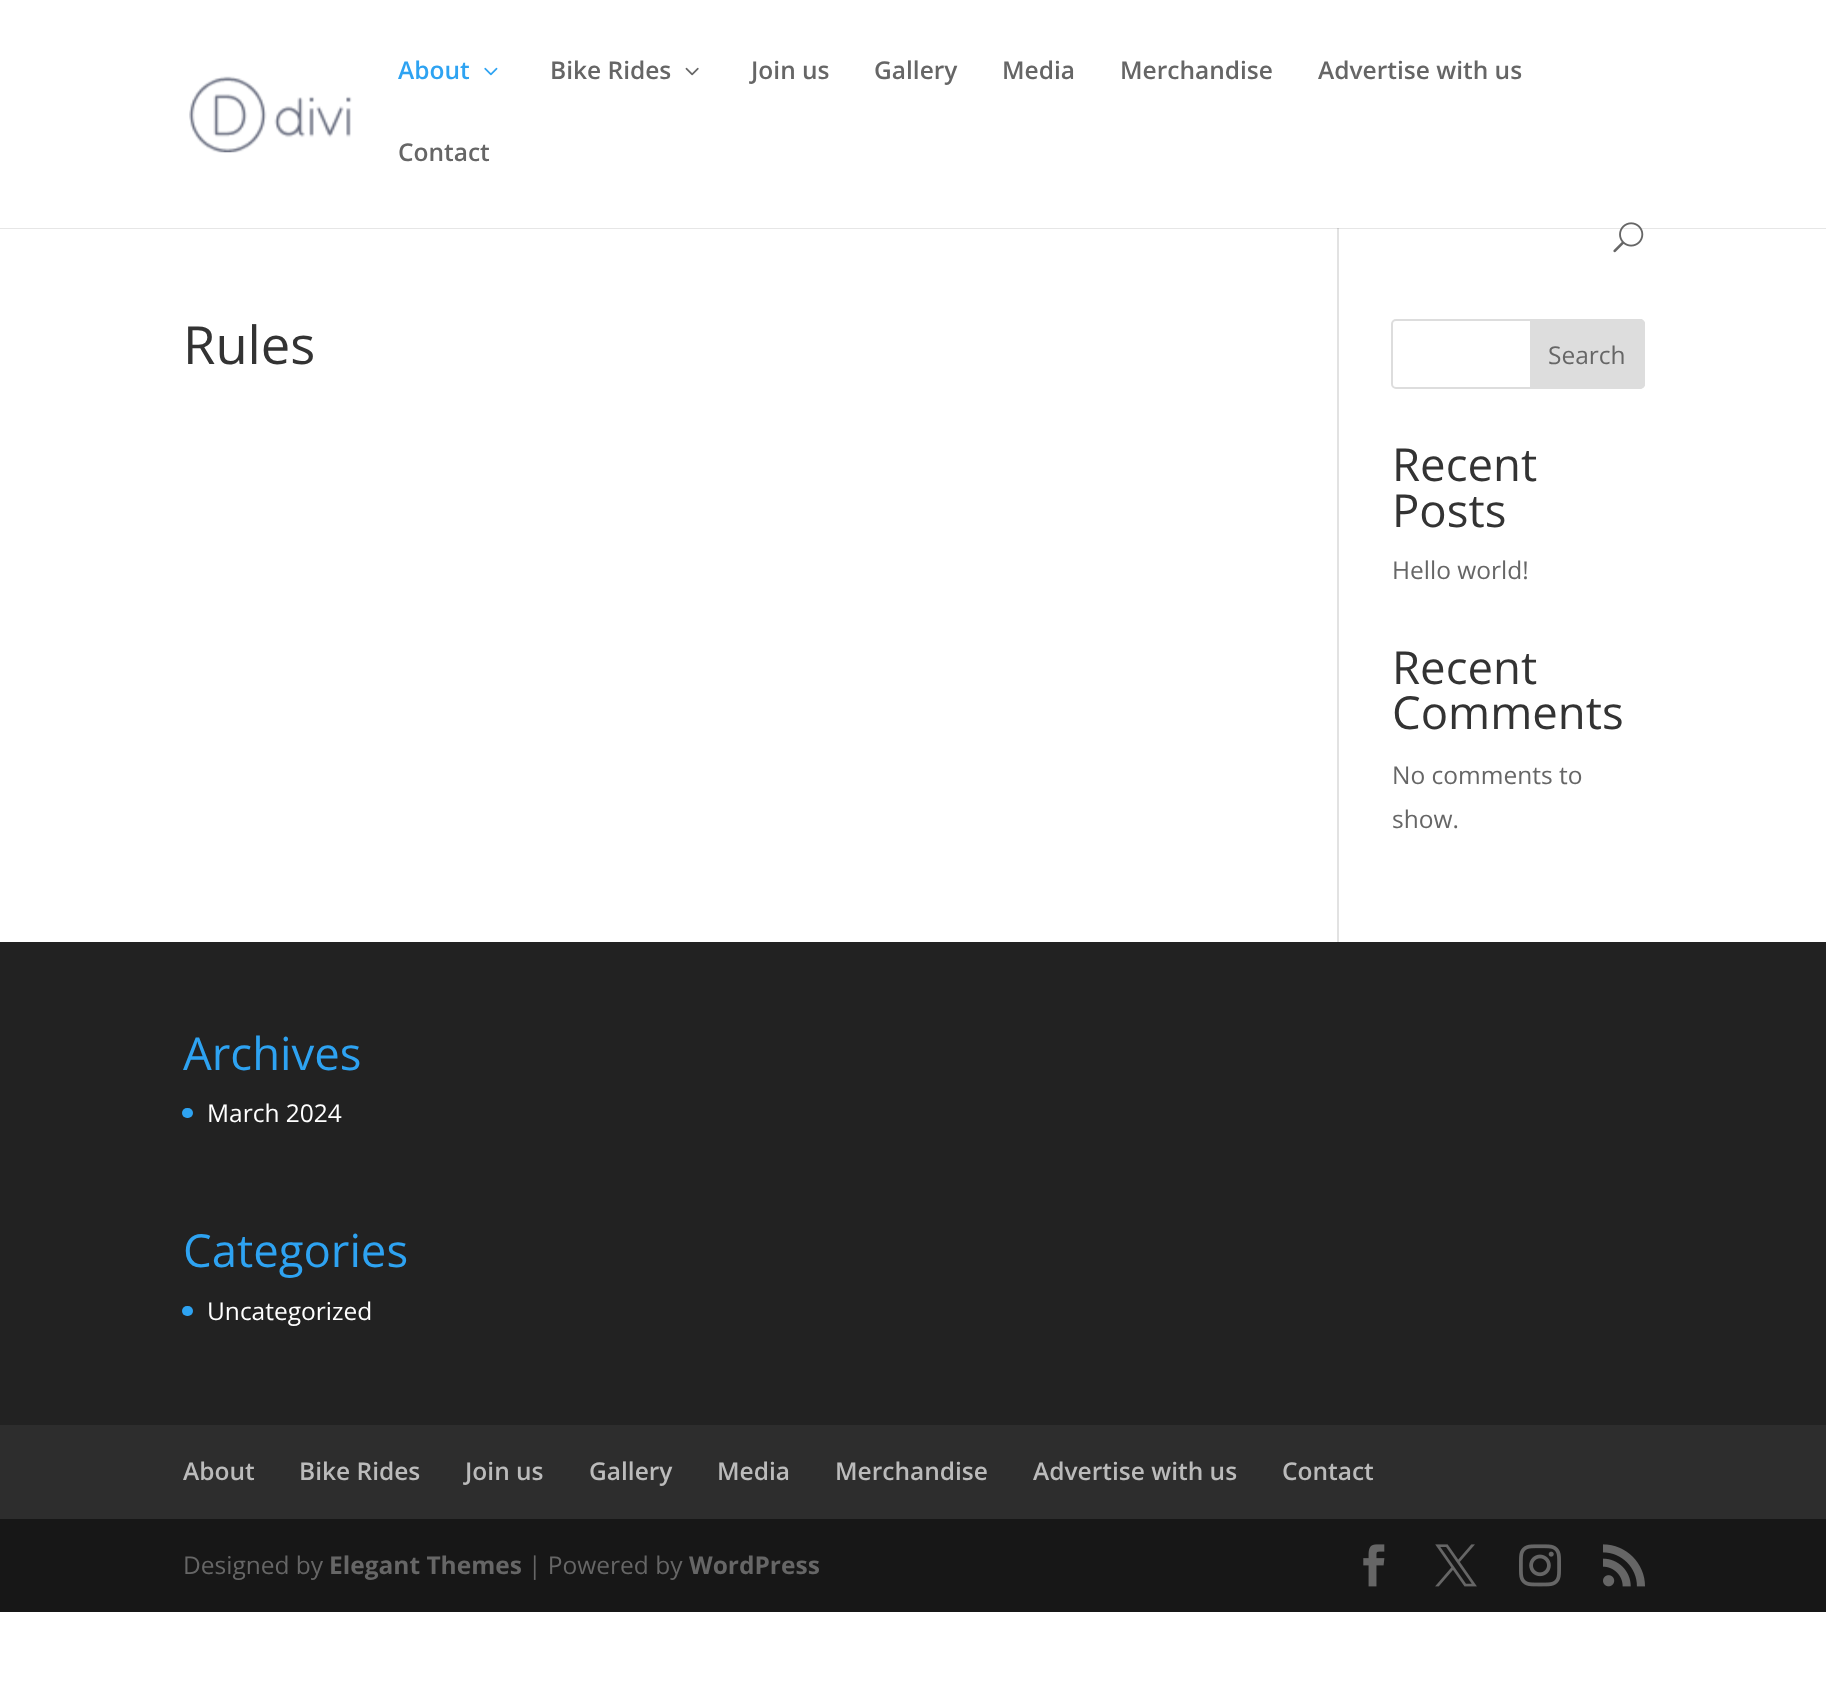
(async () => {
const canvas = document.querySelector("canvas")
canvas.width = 1826
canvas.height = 1681
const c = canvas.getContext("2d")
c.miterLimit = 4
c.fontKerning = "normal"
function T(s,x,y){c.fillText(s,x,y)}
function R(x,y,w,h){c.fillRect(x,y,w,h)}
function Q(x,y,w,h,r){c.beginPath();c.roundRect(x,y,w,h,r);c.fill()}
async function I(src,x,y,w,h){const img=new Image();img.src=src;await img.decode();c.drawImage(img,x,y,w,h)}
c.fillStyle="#fff"
R(0,0,1826,1681)
c.fillStyle="#e6e6e6"
R(0,228,1826,1)
await I("1.png",189,76,163,77)
c.font="600 24.5px Open Sans"
c.fillStyle="#2ea3f2"
T("About",398,79)
await I("2.png",484,67,14,9)
c.fillStyle="#666"
T("Bike Rides",550,79)
await I("3.png",685,67,14,9)
T("Join us",751,79)
T("Gallery",874,79)
T("Media",1002,79)
T("Merchandise",1120,79)
T("Advertise with us",1318,79)
T("Contact",398,161)
await I("4.png",1613,222,31,31)
c.fillStyle="#e2e2e2"
R(1337,229,2,713)
c.fillStyle="#cbcbcb"
R(1337,228,2,1)
c.font="52.5px Open Sans"
c.fillStyle="#333"
T("Rules",183,364)
c.beginPath()
c.roundRect(1392,320,252,68,4)
c.strokeStyle="#ddd"
c.lineWidth=2
c.stroke()
c.fillStyle="#ddd"
c.beginPath()
c.roundRect(1531,320,113,68,[0,4,4,0])
c.fill()
c.stroke()
c.font="24.5px Open Sans"
c.fillStyle="#666"
T("Search",1548,364)
c.font="45.5px Open Sans"
c.fillStyle="#333"
T("Recent",1392,481)
T("Posts",1392,527)
c.font="24.5px Open Sans"
c.fillStyle="#666"
T("Hello world!",1392,579)
c.font="45.5px Open Sans"
c.fillStyle="#333"
T("Recent",1392,684)
T("Comments",1392,729)
c.font="24.5px Open Sans"
c.fillStyle="#666"
T("No comments to",1392,784)
T("show.",1392,828)
c.fillStyle="#222"
R(0,942,1826,483)
c.font="45.5px Open Sans"
c.fillStyle="#2ea3f2"
T("Archives",183,1070)
Q(182,1108,11,10,5)
c.font="24.5px Open Sans"
c.fillStyle="#fff"
T("March 2024",207,1122)
c.font="45.5px Open Sans"
c.fillStyle="#2ea3f2"
T("Categories",183,1267)
Q(182,1306,11,10,5)
c.font="24.5px Open Sans"
c.fillStyle="#fff"
T("Uncategorized",207,1320)
c.fillStyle="#2d2d2d"
R(0,1425,1826,94)
c.font="600 24.5px Open Sans"
c.fillStyle="#bbb"
T("About",183,1480)
T("Bike Rides",299,1480)
T("Join us",465,1480)
T("Gallery",589,1480)
T("Media",717,1480)
T("Merchandise",835,1480)
T("Advertise with us",1033,1480)
T("Contact",1282,1480)
c.fillStyle="#171717"
R(0,1519,1826,93)
c.font="24.5px Open Sans"
c.fillStyle="#666"
T("Designed by",183,1574)
c.font="bold 24.5px Open Sans"
T("Elegant Themes",329,1574)
c.font="24.5px Open Sans"
T("| Powered by",528,1574)
c.font="bold 24.5px Open Sans"
T("WordPress",689,1574)
await I("5.png",1363,1544,22,43)
await I("6.png",1435,1544,42,43)
await I("7.png",1519,1544,42,43)
await I("8.png",1603,1544,42,43)
})()
